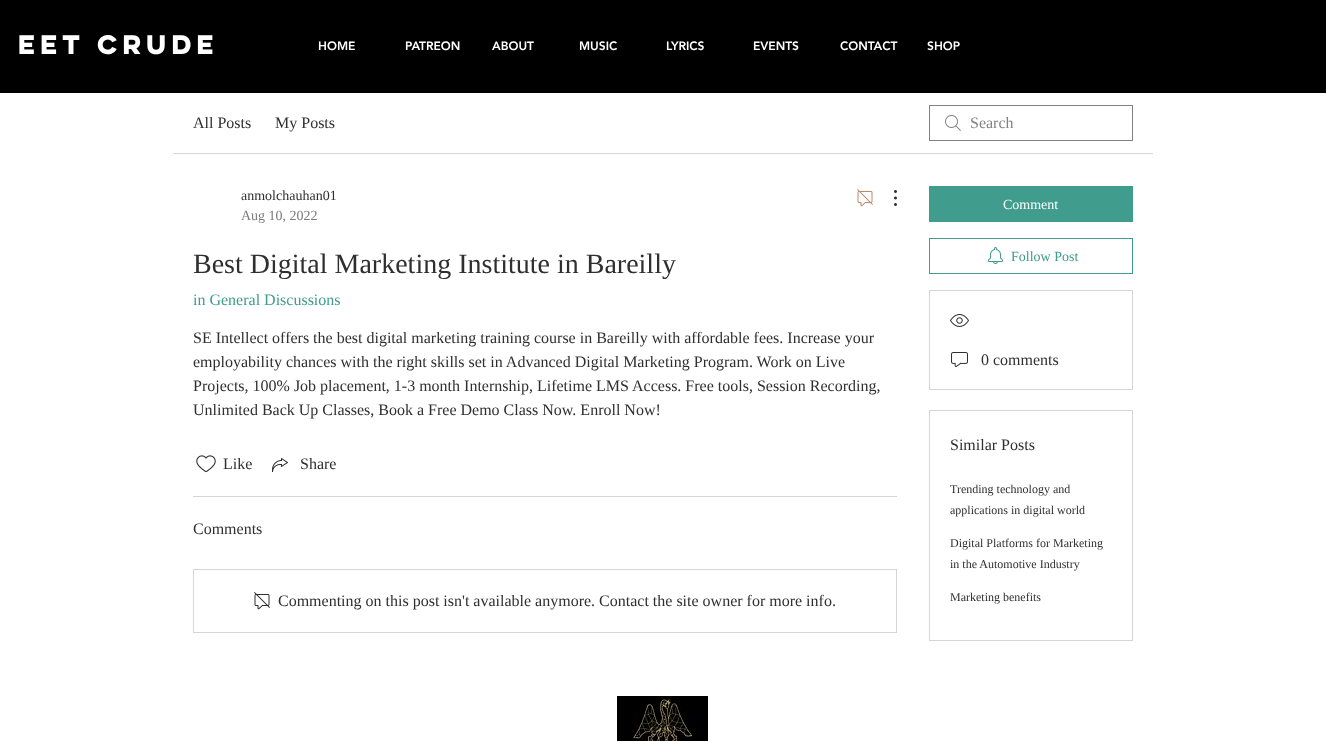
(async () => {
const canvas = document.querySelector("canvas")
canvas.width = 1326
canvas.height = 741
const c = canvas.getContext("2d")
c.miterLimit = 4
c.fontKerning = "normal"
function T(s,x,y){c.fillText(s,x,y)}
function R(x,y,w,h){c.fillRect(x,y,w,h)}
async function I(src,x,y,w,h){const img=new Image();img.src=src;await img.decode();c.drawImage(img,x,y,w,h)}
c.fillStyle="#fff"
R(0,0,1326,741)
c.fillStyle="#000"
R(0,0,1326,93)
c.font="bold 24px 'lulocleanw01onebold'"
c.fillStyle="#fff"
T("EET CRUDE",18,54)
c.font="900 12px 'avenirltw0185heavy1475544'"
T("HOME",318,50)
T("PATREON",405,50)
T("ABOUT",492,50)
T("MUSIC",579,50)
T("LYRICS",666,50)
T("EVENTS",753,50)
T("CONTACT",840,50)
T("SHOP",927,50)
c.fillStyle="#d5d5d6"
R(173,153,980,1)
c.font="16px Liberation Serif"
c.fillStyle="#2f2f30"
T("All Posts",193,128)
T("My Posts",275,128)
await I("1.png",945,115,16,16)
c.strokeStyle="#828283"
c.strokeRect(929.5,105.5,203,35)
c.fillStyle="#828283"
T("Search",970,128)
c.font="14px Liberation Serif"
c.fillStyle="#2f2f30"
T("anmolchauhan01",241,200)
c.fillStyle="#7a7a7b"
T("Aug 10, 2022",241,220)
await I("2.png",857,189,16,18)
await I("3.png",894,190,3,16)
c.font="28px Liberation Serif"
c.fillStyle="#2f2f30"
T("Best Digital Marketing Institute in Bareilly",193,273)
c.font="16px Liberation Serif"
c.fillStyle="#409c8c"
T("in General Discussions",193,305)
c.fillStyle="#2f2f30"
T("SE Intellect offers the best digital marketing training course in Bareilly with affordable fees. Increase your",193,343)
T("employability chances with the right skills set in Advanced Digital Marketing Program. Work on Live",193,367)
T("Projects, 100% Job placement, 1-3 month Internship, Lifetime LMS Access. Free tools, Session Recording,",193,391)
T("Unlimited Back Up Classes, Book a Free Demo Class Now. Enroll Now!",193,415)
await I("4.png",196,455,20,18)
T("Like",223,469)
await I("5.png",272,458,16,14)
T("Share",300,469)
c.fillStyle="#d5d5d6"
R(193,496,704,1)
c.fillStyle="#2f2f30"
T("Comments",193,534)
c.strokeStyle="#d5d5d6"
c.strokeRect(193.5,569.5,703,63)
await I("6.png",254,592,16,18)
T("Commenting on this post isn't available anymore. Contact the site owner for more info.",278,606)
c.fillStyle="#409c8c"
R(929,186,204,36)
c.font="14px Liberation Serif"
c.fillStyle="#fff"
T("Comment",1003,209)
c.strokeStyle="#409c8c"
c.strokeRect(929.5,238.5,203,35)
await I("7.png",988,247,15,17)
c.fillStyle="#409c8c"
T("Follow Post",1011,261)
c.strokeStyle="#d5d5d6"
c.strokeRect(929.5,290.5,203,99)
await I("8.png",950,314,19,13)
await I("9.png",951,352,17,15)
c.font="16px Liberation Serif"
c.fillStyle="#2f2f30"
T("0 comments",981,365)
c.strokeRect(929.5,410.5,203,230)
T("Similar Posts",950,450)
c.font="12px Liberation Serif"
T("Trending technology and",950,493)
T("applications in digital world",950,514)
T("Digital Platforms for Marketing",950,547)
T("in the Automotive Industry",950,568)
T("Marketing benefits",950,601)
await I("10.png",617,696,91,45)
})()
